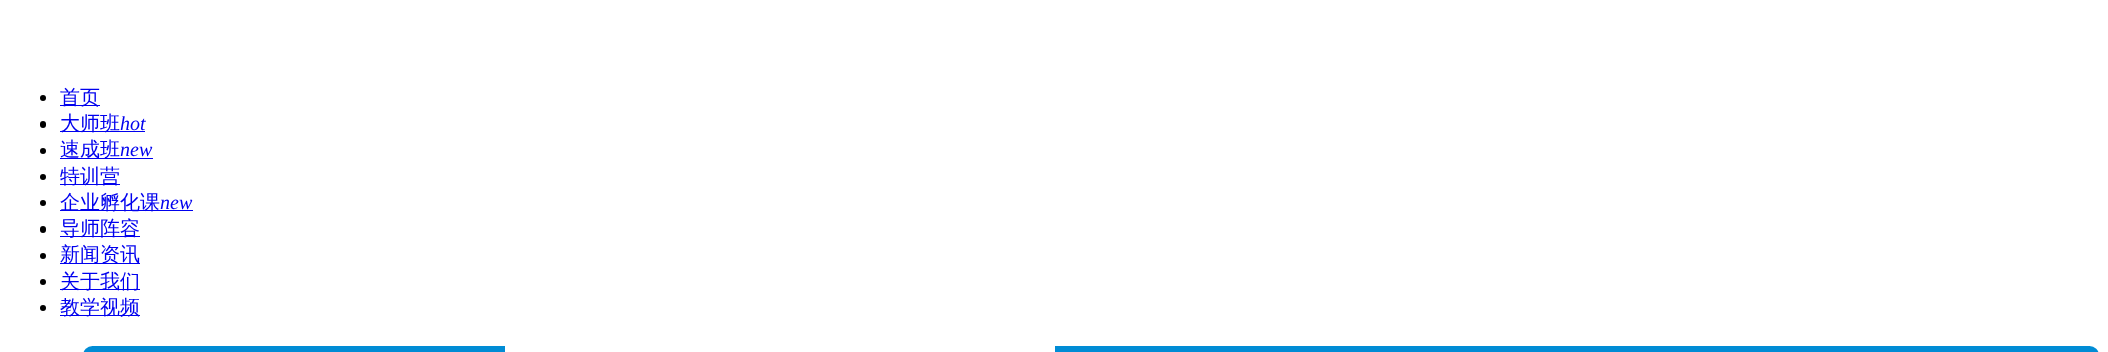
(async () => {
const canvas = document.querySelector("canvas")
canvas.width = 2108
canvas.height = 352
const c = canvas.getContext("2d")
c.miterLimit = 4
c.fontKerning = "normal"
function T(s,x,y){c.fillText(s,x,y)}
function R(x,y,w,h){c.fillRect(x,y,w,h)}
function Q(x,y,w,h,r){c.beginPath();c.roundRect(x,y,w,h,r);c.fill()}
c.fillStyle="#fff"
R(0,0,2108,352)
c.fillStyle="#000"
c.beginPath()
c.arc(43,98,3,0,7)
c.fill()
c.fillStyle="#00e"
R(60,105,40,1)
c.font="500 20px WenQuanYi Zen Hei"
T("首页",60,104)
c.fillStyle="#000"
Q(40,121,6,7,3)
c.fillStyle="#00e"
R(60,131,85,1)
T("大师班",60,130)
c.font="italic 20px Liberation Serif"
T("hot",120,130)
c.fillStyle="#000"
c.beginPath()
c.arc(43,151,3,0,7)
c.fill()
c.fillStyle="#00e"
R(60,158,93,1)
c.font="500 20px WenQuanYi Zen Hei"
T("速成班",60,156)
c.font="italic 20px Liberation Serif"
T("new",120,156)
c.fillStyle="#000"
c.beginPath()
c.arc(43,177,3,0,7)
c.fill()
c.fillStyle="#00e"
R(60,184,60,1)
c.font="500 20px WenQuanYi Zen Hei"
T("特训营",60,183)
c.fillStyle="#000"
c.beginPath()
c.arc(43,203,3,0,7)
c.fill()
c.fillStyle="#00e"
R(60,210,133,1)
T("企业孵化课",60,209)
c.font="italic 20px Liberation Serif"
T("new",160,209)
c.fillStyle="#000"
Q(40,226,6,7,3)
c.fillStyle="#00e"
R(60,236,80,1)
c.font="500 20px WenQuanYi Zen Hei"
T("导师阵容",60,235)
c.fillStyle="#000"
c.beginPath()
c.arc(43,256,3,0,7)
c.fill()
c.fillStyle="#00e"
R(60,263,80,1)
T("新闻资讯",60,261)
c.fillStyle="#000"
c.beginPath()
c.arc(43,282,3,0,7)
c.fill()
c.fillStyle="#00e"
R(60,289,80,1)
T("关于我们",60,288)
c.fillStyle="#000"
c.beginPath()
c.arc(43,308,3,0,7)
c.fill()
c.fillStyle="#00e"
R(60,315,80,1)
T("教学视频",60,314)
c.fillStyle="#008cd5"
Q(83,346,2016,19,12.5)
c.fillStyle="#fff"
Q(505,313,550,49,10)
})()
